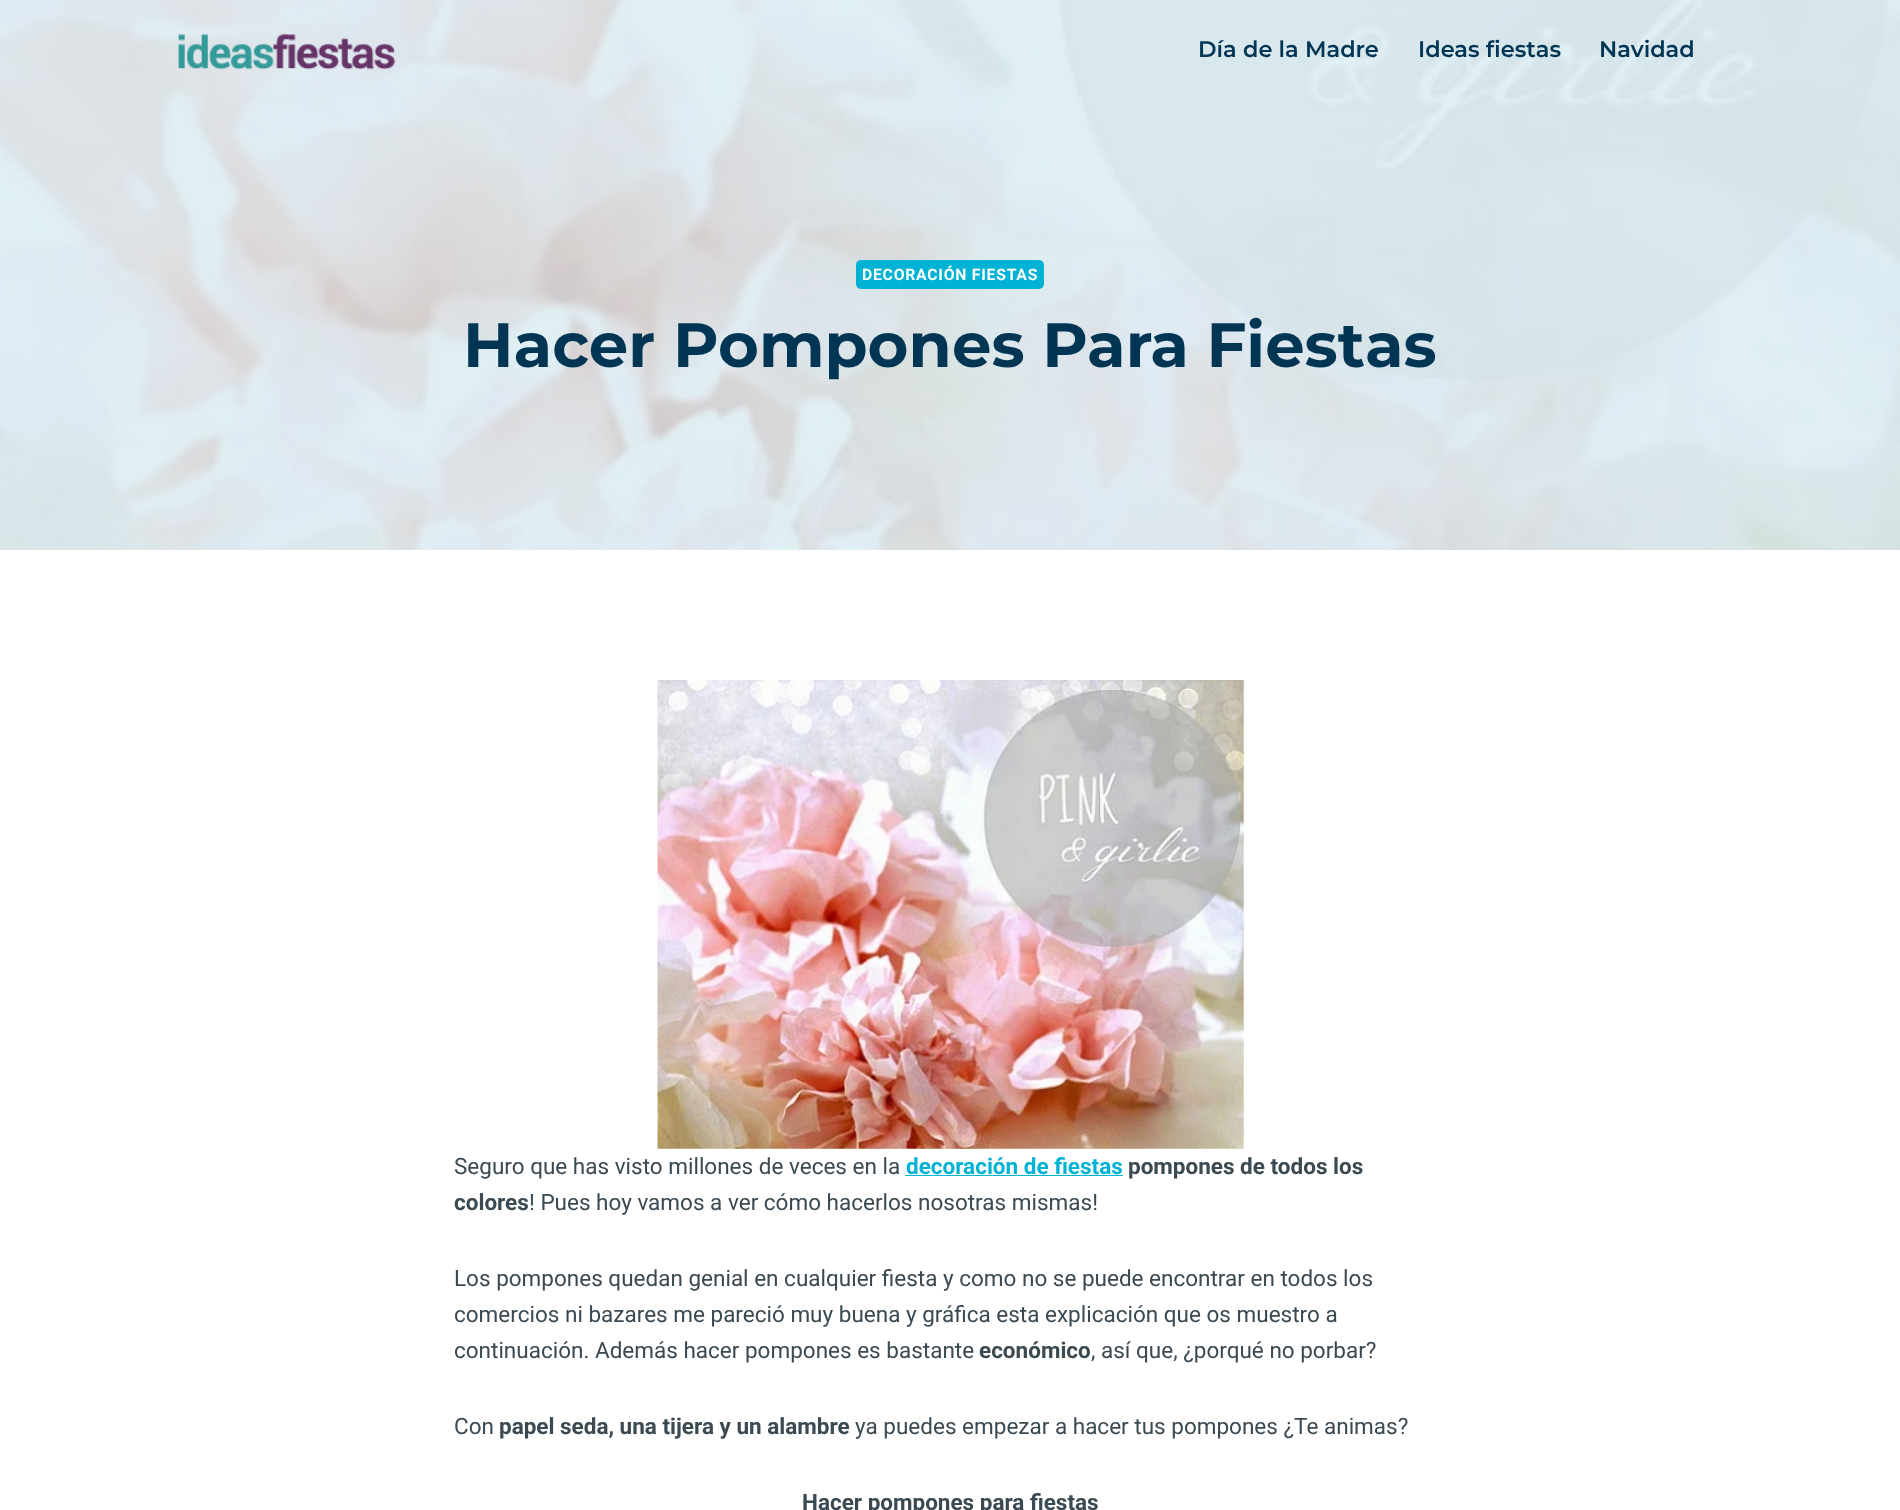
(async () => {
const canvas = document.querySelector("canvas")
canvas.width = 1900
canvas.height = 1510
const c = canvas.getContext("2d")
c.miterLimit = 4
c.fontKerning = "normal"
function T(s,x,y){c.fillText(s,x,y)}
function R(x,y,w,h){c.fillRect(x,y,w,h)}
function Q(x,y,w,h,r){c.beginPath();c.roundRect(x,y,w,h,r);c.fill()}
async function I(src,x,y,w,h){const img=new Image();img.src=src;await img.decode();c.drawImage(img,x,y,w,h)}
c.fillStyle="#fff"
R(0,0,1900,1510)
await I("2.png",0,0,1900,550)
await I("1.png",178,34,218,36)
c.font="600 22.5px Montserrat"
c.fillStyle="#003554"
T("Día de la Madre",1198,57)
T("Ideas fiestas",1418,57)
T("Navidad",1599,57)
c.fillStyle="#00b2d4"
Q(856,260,188,29,5)
c.letterSpacing="0.75px"
c.font="bold 15.75px Roboto"
c.fillStyle="#fff"
T("DECORACIÓN FIESTAS",862,280)
c.letterSpacing="0px"
c.font="bold 62.5px Montserrat"
c.fillStyle="#003554"
T("Hacer Pompones Para Fiestas",463,367)
await I("3.png",657,680,587,469)
c.font="22.5px Roboto"
c.fillStyle="#3a4952"
T("Seguro que has visto millones de veces en la",454,1174)
c.font="bold 22.5px Roboto"
c.fillStyle="#00b2d4"
T("decoración de fiestas",906,1174)
R(905,1175,218,1)
c.fillStyle="#3a4952"
T("pompones de todos los",1128,1174)
T("colores",454,1210)
c.font="22.5px Roboto"
T("! Pues hoy vamos a ver cómo hacerlos nosotras mismas!",529,1210)
T("Los pompones quedan genial en cualquier fiesta y como no se puede encontrar en todos los",454,1286)
T("comercios ni bazares me pareció muy buena y gráfica esta explicación que os muestro a",454,1322)
T("continuación. Además hacer pompones es bastante",454,1358)
c.font="bold 22.5px Roboto"
T("económico",979,1358)
c.font="22.5px Roboto"
T(", así que, ¿porqué no porbar?",1091,1358)
T("Con",454,1434)
c.font="bold 22.5px Roboto"
T("papel seda, una tijera y un alambre",499,1434)
c.font="22.5px Roboto"
T("ya puedes empezar a hacer tus pompones ¿Te animas?",855,1434)
c.font="bold 22.5px Roboto"
T("Hacer pompones para fiestas",802,1510)
})()
